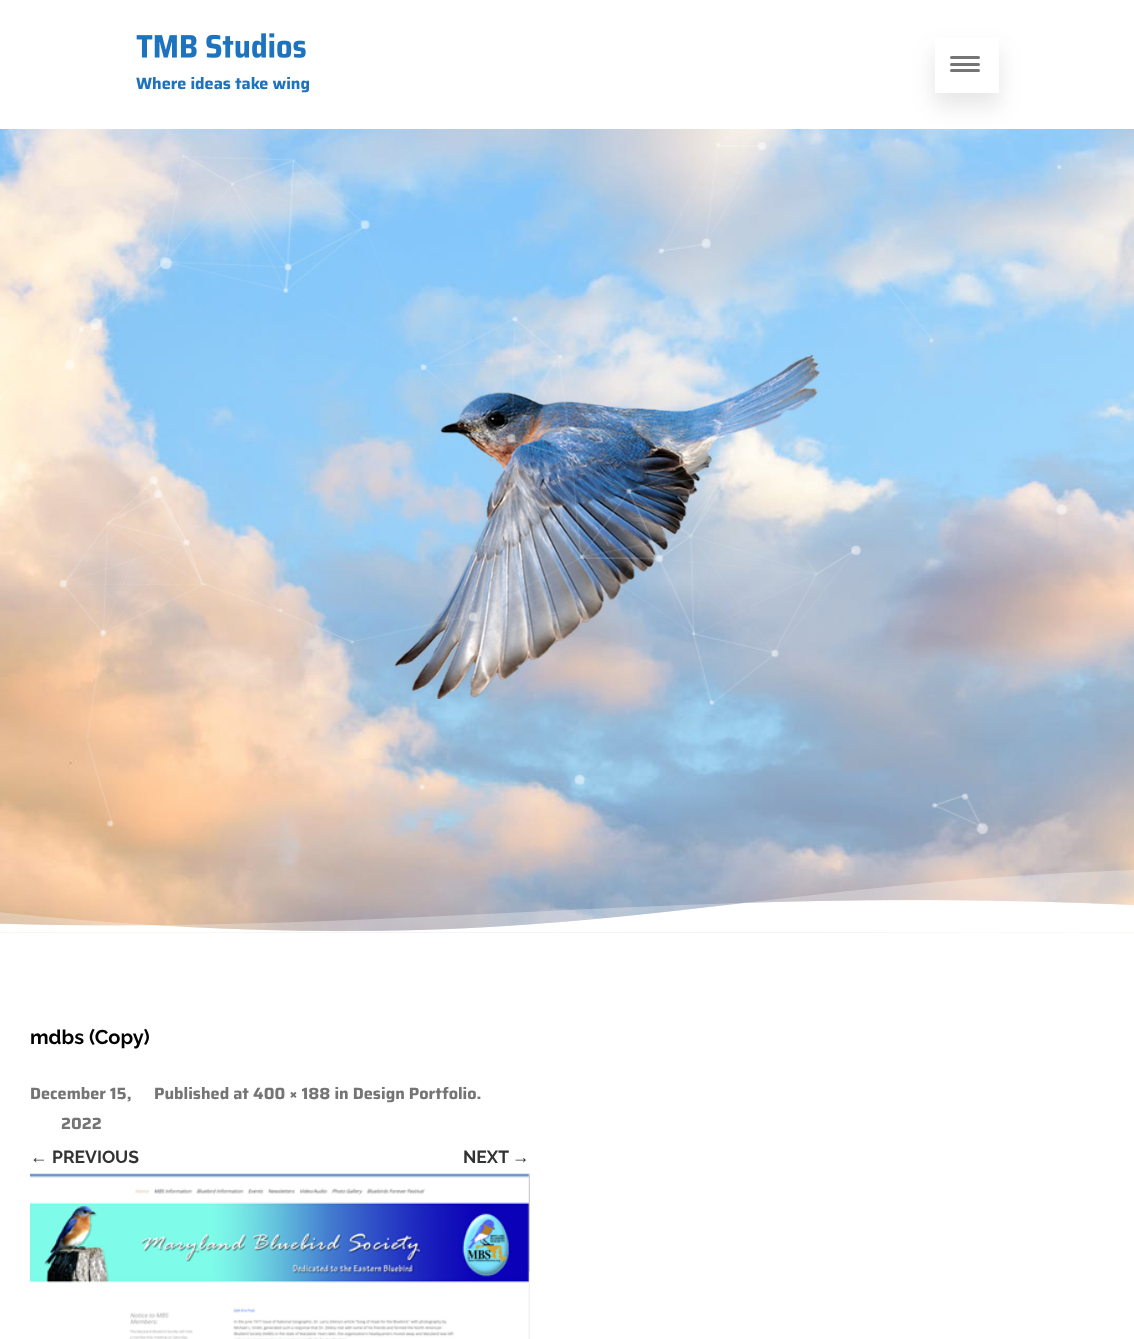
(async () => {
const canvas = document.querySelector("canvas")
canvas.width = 1134
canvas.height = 1339
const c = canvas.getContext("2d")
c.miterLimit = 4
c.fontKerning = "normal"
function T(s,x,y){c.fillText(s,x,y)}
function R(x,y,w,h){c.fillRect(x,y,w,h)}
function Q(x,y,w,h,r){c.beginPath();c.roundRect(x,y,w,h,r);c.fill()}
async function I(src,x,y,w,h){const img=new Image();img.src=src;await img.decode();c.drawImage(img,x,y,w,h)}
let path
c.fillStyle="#fff"
R(0,0,1134,1339)
await I("1.png",136,33,170,25)
c.font="bold 16.25px Saira"
c.fillStyle="#1e73be"
T("Where ideas take wing",136,89)
await I("2.png",0,129,1134,804)
c.save()
path = new Path2D("M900 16h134v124h-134zm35 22h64v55h-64z")
c.clip(path,"evenodd")
c.fillStyle="#40404021"
c.filter="blur(11px)"
c.beginPath()
c.rect(934,50,66,56)
c.fill()
c.filter="none"
c.restore()
c.fillStyle="#757575"
Q(950,56,30,3,1.5)
Q(950,63,30,3,1.5)
Q(950,69,30,3,1.5)
await I("3.png",0,870,1134,63)
await I("4.png",0,142,1068,693)
c.font="bold 20px Raleway"
c.fillStyle="#000"
T("mdbs (Copy)",30,1044)
c.font="bold 16.25px Saira"
c.fillStyle="#757575"
T("December 15,",30,1099)
T("2022",61,1129)
T("Published at 400 × 188 in Design Portfolio.",154,1099)
c.font="bold 17.5px Liberation Sans"
c.fillStyle="#333"
T("←",30,1163)
c.font="bold 17.5px Raleway"
T("PREVIOUS",52,1163)
T("NEXT",463,1163)
c.font="bold 17.5px Liberation Sans"
T("→",512,1163)
await I("5.png",30,1173,500,166)
})()
